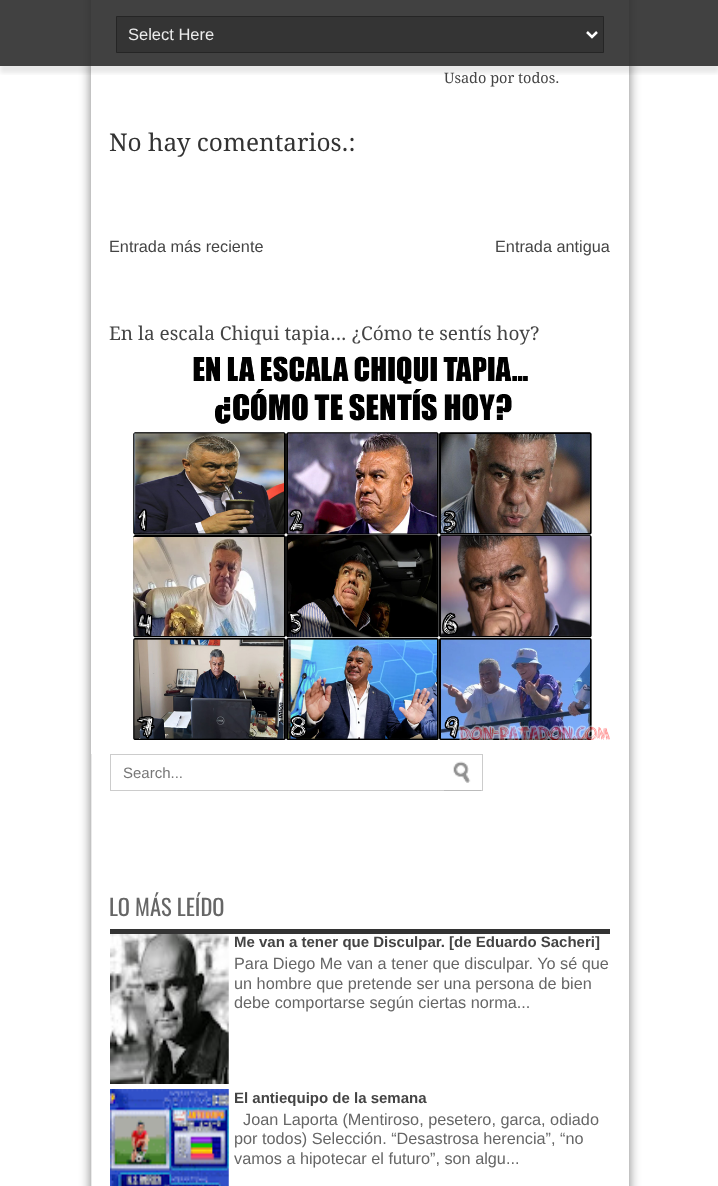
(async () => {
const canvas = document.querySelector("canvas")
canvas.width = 718
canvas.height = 1186
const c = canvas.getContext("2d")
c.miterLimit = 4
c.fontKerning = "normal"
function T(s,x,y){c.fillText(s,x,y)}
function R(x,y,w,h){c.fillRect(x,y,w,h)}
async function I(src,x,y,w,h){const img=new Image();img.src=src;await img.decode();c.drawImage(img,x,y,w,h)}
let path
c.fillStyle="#fff"
R(0,0,718,1186)
c.fillStyle="#00000080"
c.filter="blur(6px)"
c.beginPath()
c.rect(91,-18,538,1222)
c.fill()
c.filter="none"
c.fillStyle="#fff"
R(91,0,538,1186)
c.save()
c.beginPath()
c.rect(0,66,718,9)
c.clip()
c.fillStyle="#00000017"
c.filter="blur(2px)"
c.beginPath()
c.rect(0,6,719,67)
c.fill()
c.filter="none"
c.restore()
c.fillStyle="#2c2c2ce6"
R(0,0,718,66)
c.fillStyle="#333333e6"
c.beginPath()
c.rect(116.5,16.5,487,36)
c.fill()
c.strokeStyle="#252525"
c.stroke()
path = new Path2D("M587 32l5 5l5-5")
c.strokeStyle="#fff"
c.lineWidth=2.5
c.stroke(path)
c.font="16.5px Liberation Sans"
c.fillStyle="#ebebeb"
T("Select Here",128,40)
c.font="14.5px Droid Serif"
c.fillStyle="#444"
T("Usado por todos.",444,83)
c.font="24.4px Droid Serif"
c.fillStyle="#333"
T("No hay comentarios.:",109,151)
c.font="16.25px Liberation Sans"
c.fillStyle="#444"
T("Entrada más reciente",109,252)
T("Entrada antigua",495,252)
c.font="19px Droid Serif"
T("En la escala Chiqui tapia... ¿Cómo te sentís hoy?",109,340)
await I("1.png",133,356,477,384)
c.fillStyle="#eaeaea"
R(91,754,1,432)
c.strokeStyle="#ccc"
c.lineWidth=1
c.strokeRect(110.5,754.5,372,36)
c.font="15px Liberation Sans"
c.fillStyle="#777"
T("Search...",123,778)
c.fillStyle="#bbb"
R(444,790,37,1)
await I("2.png",453,761,18,22)
c.fillStyle="#333"
R(110,929,500,5)
c.font="22.5px Oswald"
c.fillStyle="#666"
T("LO MÁS LEÍDO",109,916)
await I("3.png",110,934,119,150)
c.font="bold 15px Liberation Sans"
c.fillStyle="#444"
T("Me van a tener que Disculpar. [de Eduardo Sacheri]",234,947)
c.font="16.25px Liberation Sans"
c.fillStyle="#666"
T("Para Diego Me van a tener que disculpar. Yo sé que",234,969)
T("un hombre que pretende ser una persona de bien",234,989)
T("debe comportarse según ciertas norma...",234,1008)
await I("4.png",110,1089,119,97)
c.font="bold 15px Liberation Sans"
c.fillStyle="#444"
T("El antiequipo de la semana",234,1103)
c.font="16.25px Liberation Sans"
c.fillStyle="#666"
T("Joan Laporta (Mentiroso, pesetero, garca, odiado",243,1125)
T("por todos) Selección. “Desastrosa herencia”, “no",234,1144)
T("vamos a hipotecar el futuro”, son algu...",234,1164)
})()
